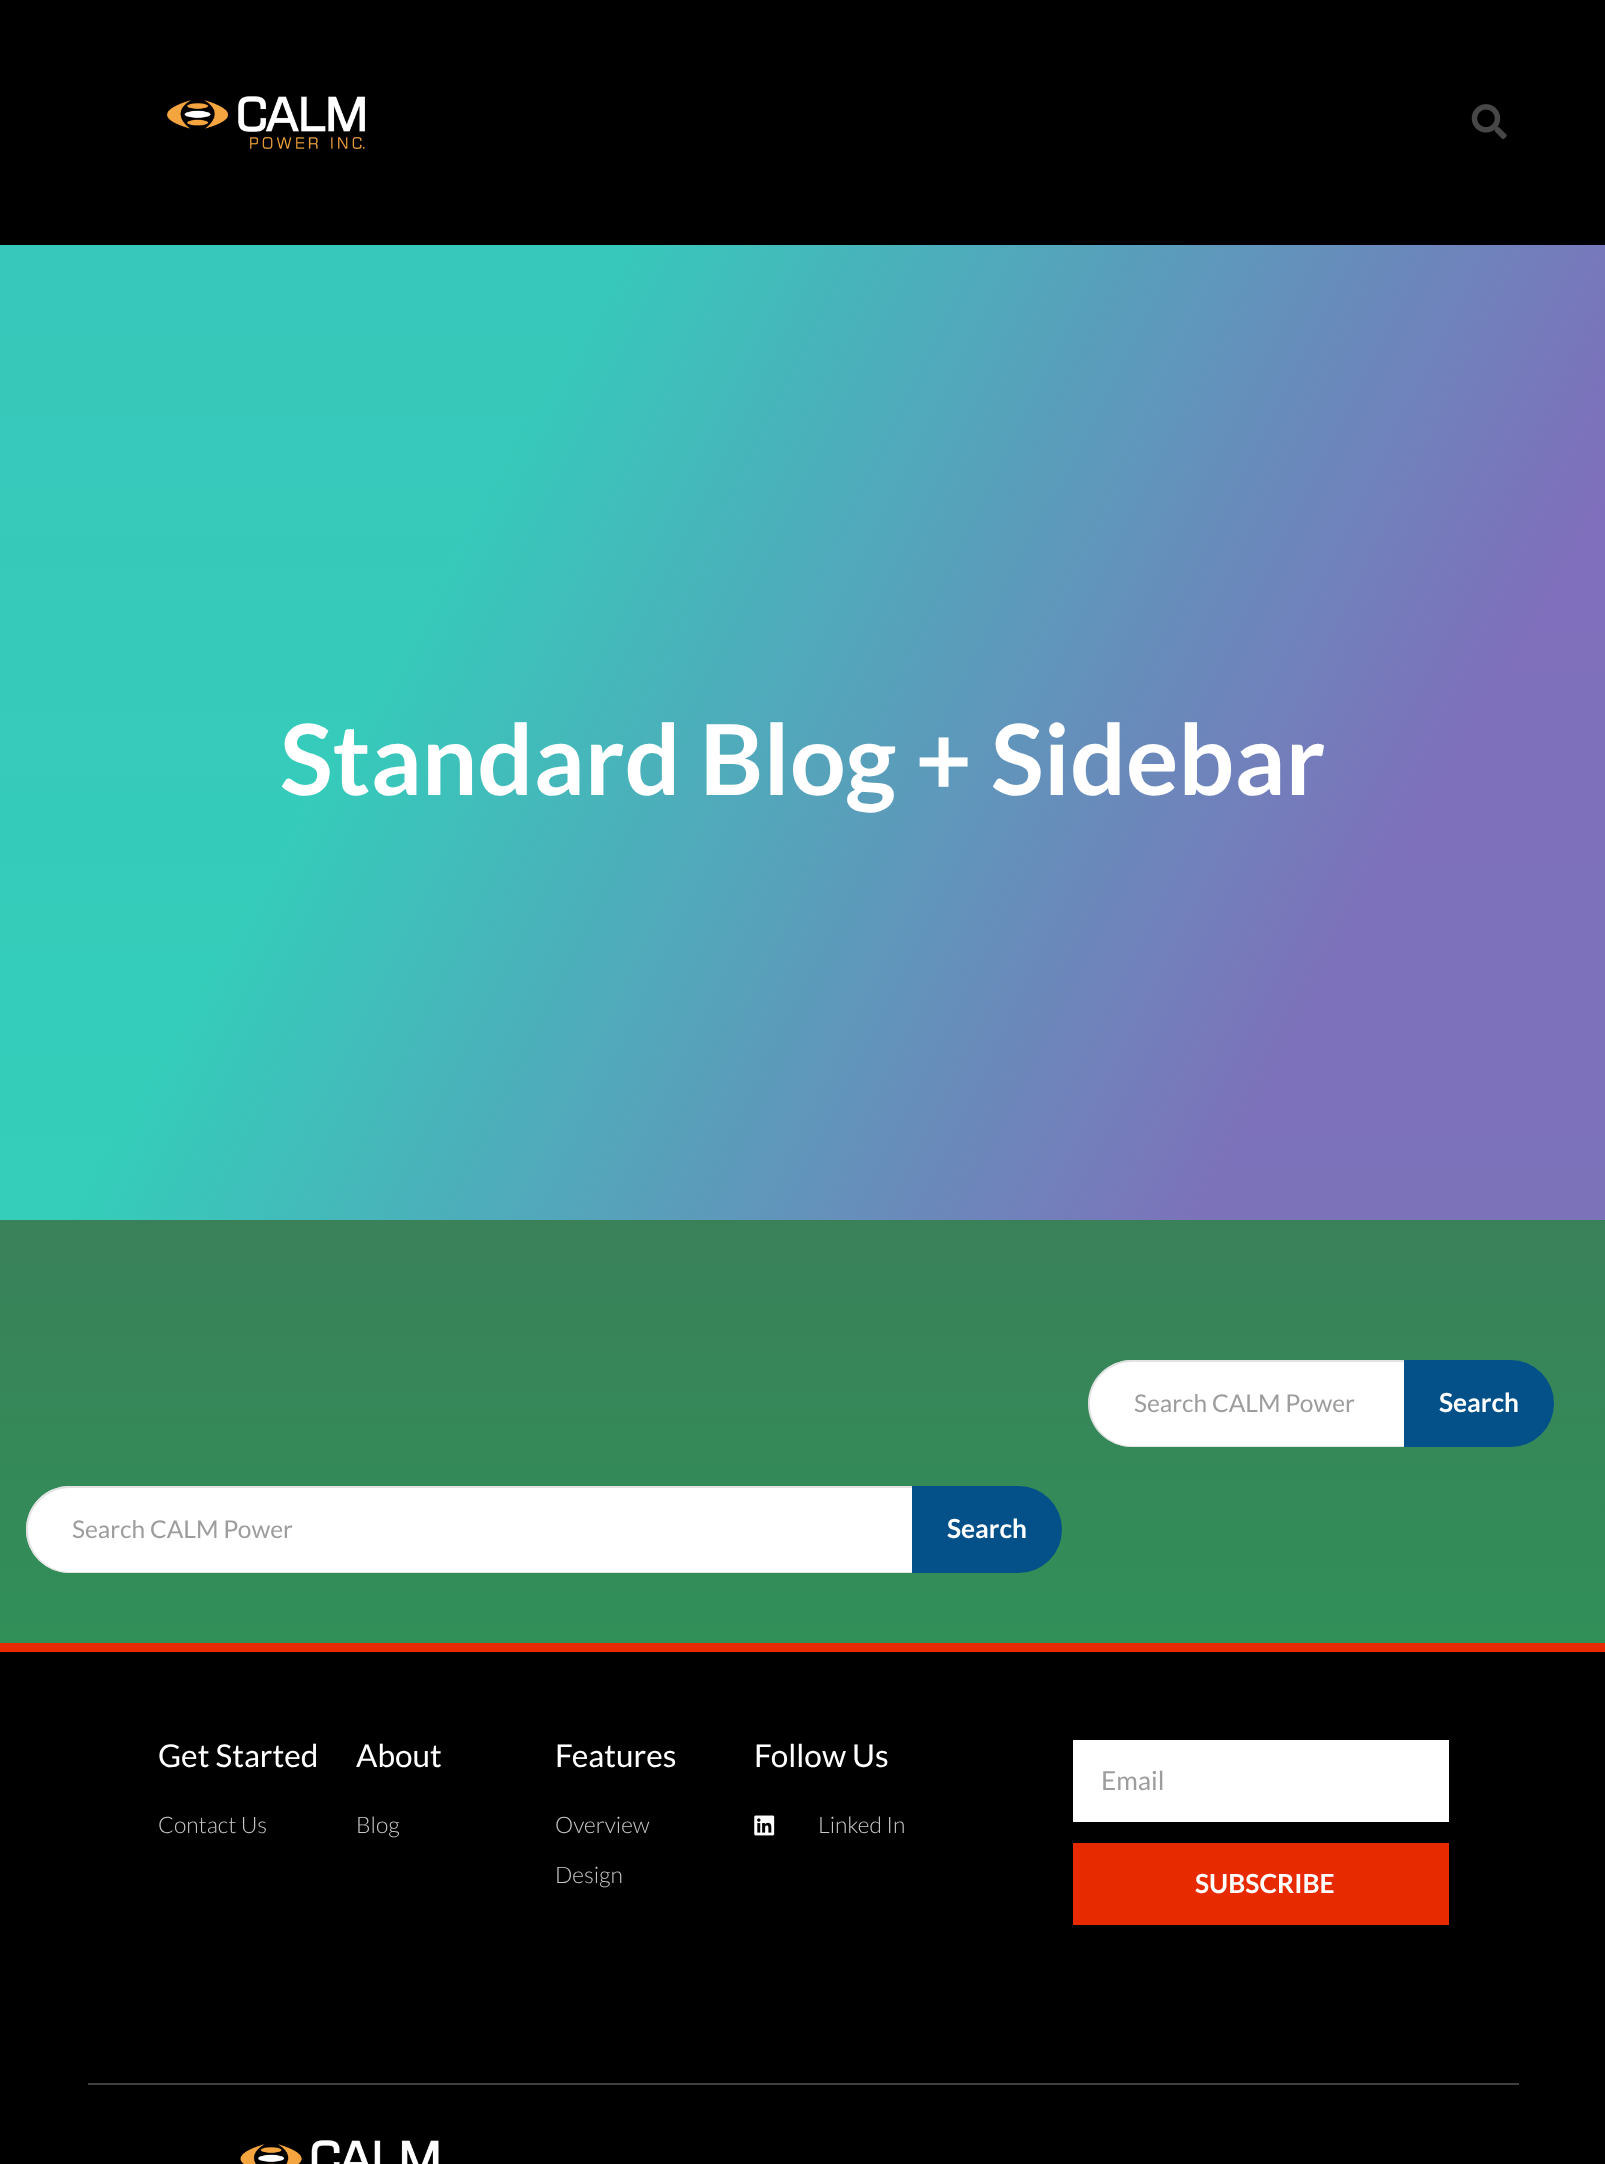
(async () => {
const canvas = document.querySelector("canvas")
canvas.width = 1605
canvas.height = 2164
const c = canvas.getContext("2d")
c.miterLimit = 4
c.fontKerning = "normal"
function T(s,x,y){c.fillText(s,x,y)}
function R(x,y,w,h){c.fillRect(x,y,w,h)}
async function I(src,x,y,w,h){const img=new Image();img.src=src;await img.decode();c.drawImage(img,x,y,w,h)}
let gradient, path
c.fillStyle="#fff"
R(0,0,1605,2164)
gradient = c.createLinearGradient(803,0,803,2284)
gradient.addColorStop(0,"#54595f")
gradient.addColorStop(1,"#23a455")
c.fillStyle = gradient
R(0,245,1605,1398)
c.fillStyle="#000"
R(0,0,1605,245)
await I("1.png",167,96,198,53)
await I("2.png",1471,104,36,35)
gradient = c.createLinearGradient(-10,263,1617,1202)
gradient.addColorStop(.29,"#32e1d2cc")
gradient.addColorStop(.81,"#8d6fd3cc")
c.fillStyle = gradient
R(0,245,1605,975)
c.font="bold 98px Lato"
c.fillStyle="#fff"
T("Standard Blog + Sidebar",280,795)
c.beginPath()
c.roundRect(1089,1360,315,87,[43.5,0,0,43.5])
c.fill()
c.fillStyle="#e2e2e2"
path = new Path2D("M1132 1360h272v87h-272c-24 0-44-19-44-43c0-25 20-44 44-44zm0 2h272v84h-272c-23 0-42-19-42-42c0-24 19-42 42-42z")
c.fill(path,"evenodd")
c.font="24.5px Lato"
c.fillStyle="#9d9d9d"
T("Search CALM Power",1134,1412)
c.fillStyle="#045089"
c.beginPath()
c.roundRect(1404,1360,150,87,[0,43.5,43.5,0])
c.fill()
c.font="bold 26.25px Lato"
c.fillStyle="#fff"
T("Search",1439,1412)
c.beginPath()
c.roundRect(26,1486,886,87,[43.5,0,0,43.5])
c.fill()
c.fillStyle="#e2e2e2"
path = new Path2D("M70 1486h842v87h-842c-24 0-44-19-44-43c0-25 20-44 44-44zm0 2h842v84h-842c-23 0-42-19-42-42c0-24 19-42 42-42z")
c.fill(path,"evenodd")
c.font="24.5px Lato"
c.fillStyle="#9d9d9d"
T("Search CALM Power",72,1538)
c.fillStyle="#045089"
c.beginPath()
c.roundRect(912,1486,150,87,[0,43.5,43.5,0])
c.fill()
c.font="bold 26.25px Lato"
c.fillStyle="#fff"
T("Search",947,1538)
c.fillStyle="#000"
R(0,1652,1605,512)
c.fillStyle="#e82a00"
R(0,1643,1605,9)
c.font="31.5px Lato"
c.fillStyle="#fff"
T("Get Started",158,1767)
c.font="300 22.75px Lato"
c.fillStyle="#c9c9c9"
T("Contact Us",158,1833)
c.font="31.5px Lato"
c.fillStyle="#fff"
T("About",356,1767)
c.font="300 22.75px Lato"
c.fillStyle="#c9c9c9"
T("Blog",356,1833)
c.font="31.5px Lato"
c.fillStyle="#fff"
T("Features",555,1767)
c.font="300 22.75px Lato"
c.fillStyle="#c9c9c9"
T("Overview",555,1833)
T("Design",555,1883)
c.font="31.5px Lato"
c.fillStyle="#fff"
T("Follow Us",754,1767)
await I("3.png",754,1815,21,21)
c.font="300 22.75px Lato"
c.fillStyle="#c9c9c9"
T("Linked In",818,1833)
c.fillStyle="#fff"
R(1073,1740,376,82)
c.font="26.25px Lato"
c.fillStyle="#9d9d9d"
T("Email",1101,1790)
c.fillStyle="#e82a00"
R(1073,1843,376,82)
c.font="bold 26.25px Lato"
c.fillStyle="#fff"
T("SUBSCRIBE",1195,1893)
c.fillStyle="#404040"
R(88,2083,1431,2)
await I("4.png",240,2140,199,24)
})()
